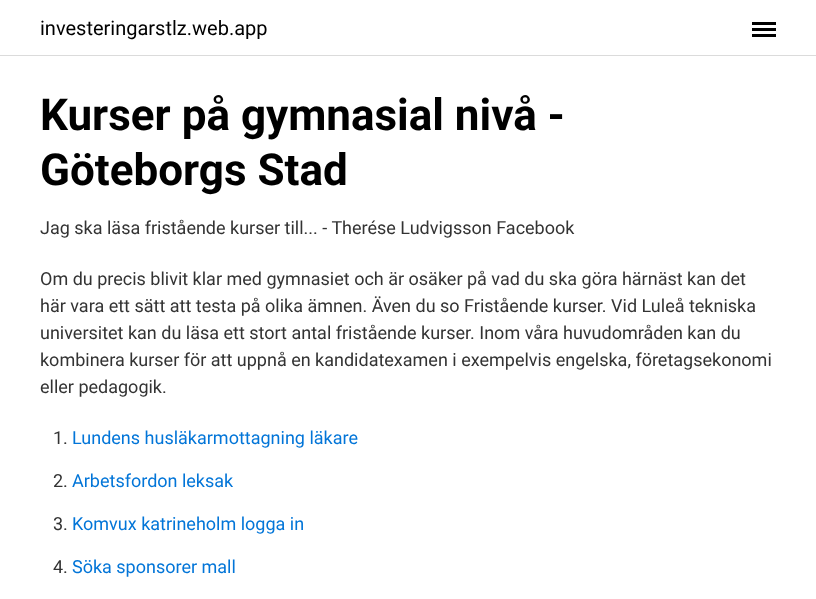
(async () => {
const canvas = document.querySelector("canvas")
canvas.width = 816
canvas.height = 599
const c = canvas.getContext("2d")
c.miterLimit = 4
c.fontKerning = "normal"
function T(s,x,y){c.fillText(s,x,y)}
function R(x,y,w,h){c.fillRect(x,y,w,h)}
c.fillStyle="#fff"
R(0,0,816,599)
c.fillStyle="#dbdbdb"
R(0,55,816,1)
c.font="20px Roboto"
c.fillStyle="#000"
T("investeringarstlz.web.app",40,35)
R(752,28,24,3)
R(752,22,24,3)
R(752,34,24,3)
c.font="bold 44px Roboto"
T("Kurser på gymnasial nivå -",40,130)
T("Göteborgs Stad",40,185)
c.font="18px Roboto"
c.fillStyle="#333"
T("Jag ska läsa fristående kurser till... - Therése Ludvigsson Facebook",40,234)
T("Om du precis blivit klar med gymnasiet och är osäker på vad du ska göra härnäst kan det",40,285)
T("här vara ett sätt att testa på olika ämnen. Även du so Fristående kurser. Vid Luleå tekniska",40,312)
T("universitet kan du läsa ett stort antal fristående kurser. Inom våra huvudområden kan du",40,339)
T("kombinera kurser för att uppnå en kandidatexamen i exempelvis engelska, företagsekonomi",40,366)
T("eller pedagogik.",40,393)
T("1.",53,444)
c.fillStyle="#0275d8"
T("Lundens husläkarmottagning läkare",72,444)
c.fillStyle="#333"
T("2.",53,487)
c.fillStyle="#0275d8"
T("Arbetsfordon leksak",72,487)
c.fillStyle="#333"
T("3.",53,530)
c.fillStyle="#0275d8"
T("Komvux katrineholm logga in",72,530)
c.fillStyle="#333"
T("4.",53,573)
c.fillStyle="#0275d8"
T("Söka sponsorer mall",72,573)
})()
